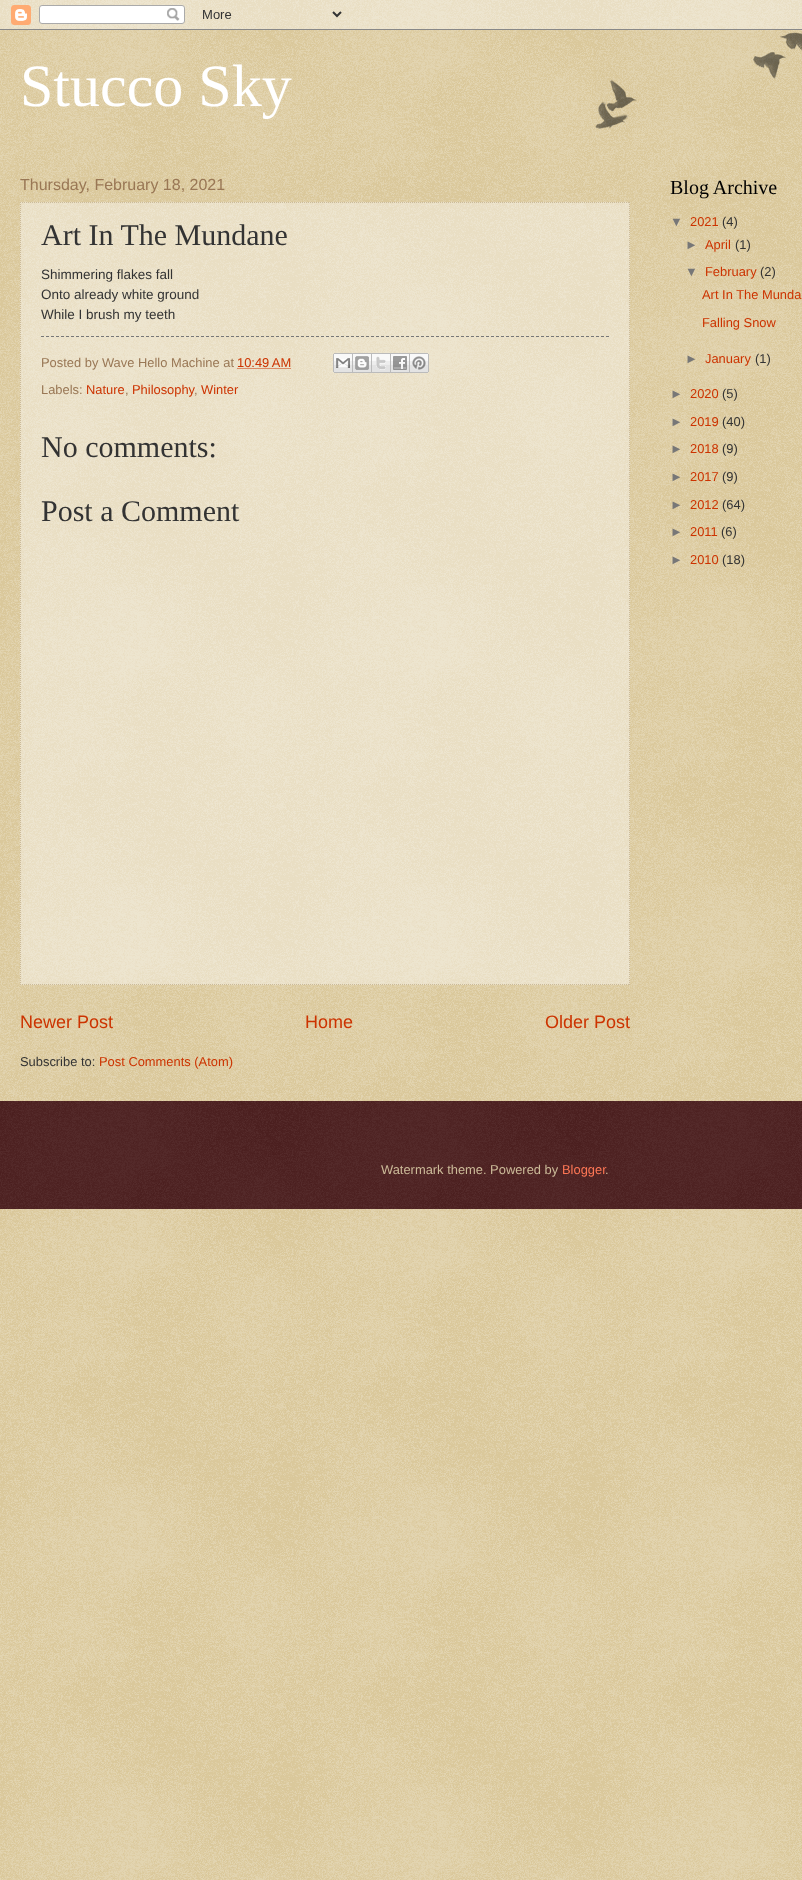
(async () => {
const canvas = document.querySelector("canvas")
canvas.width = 802
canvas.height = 1880
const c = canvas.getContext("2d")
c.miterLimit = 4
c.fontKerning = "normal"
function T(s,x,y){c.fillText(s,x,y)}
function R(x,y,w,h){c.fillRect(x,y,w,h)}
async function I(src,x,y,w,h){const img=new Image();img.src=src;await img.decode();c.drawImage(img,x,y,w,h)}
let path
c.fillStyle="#c0a154"
R(0,0,802,1880)
await I("1.png",0,0,802,1880)
await I("2.png",0,0,802,30)
await I("3.png",595,32,207,97)
c.font="60px Liberation Serif"
c.fillStyle="#fff"
T("Stucco Sky",20,106)
c.font="16px Liberation Sans"
c.fillStyle="#975"
T("Thursday, February 18, 2021",20,190)
c.fillStyle="#ffffff66"
R(20,202,610,783)
path = new Path2D("M20 202.5h610")
c.strokeStyle="#cb9"
c.setLineDash([1,1])
c.stroke(path)
path = new Path2D("M629.5 202v783")
c.stroke(path)
path = new Path2D("M20 984.5h610")
c.stroke(path)
path = new Path2D("M20.5 202v783")
c.stroke(path)
c.font="30px Liberation Serif"
c.fillStyle="#333"
T("Art In The Mundane",41,245)
c.font="13.5px Liberation Sans"
T("Shimmering flakes fall",41,279)
T("Onto already white ground",41,299)
T("While I brush my teeth",41,319)
path = new Path2D("M41 336.5h568")
c.strokeStyle="#777"
c.setLineDash([3,2])
c.stroke(path)
c.font="12.9px Liberation Sans"
c.fillStyle="#975"
T("Posted by Wave Hello Machine at",41,367)
c.fillStyle="#c30"
T("10:49 AM",237,367)
path = new Path2D("M237.5 368.5h54")
c.strokeStyle="#c30"
c.setLineDash([1,1])
c.stroke(path)
await I("4.png",333,353,20,20)
await I("5.png",353,353,19,20)
await I("6.png",372,353,19,20)
await I("7.png",391,353,19,20)
await I("8.png",410,353,19,20)
c.fillStyle="#975"
T("Labels:",41,394)
c.fillStyle="#c30"
T("Nature",86,394)
c.fillStyle="#975"
T(",",125,394)
c.fillStyle="#c30"
T("Philosophy",132,394)
c.fillStyle="#975"
T(",",194,394)
c.fillStyle="#c30"
T("Winter",201,394)
c.font="30px Liberation Serif"
c.fillStyle="#333"
T("No comments:",41,457)
T("Post a Comment",41,521)
c.font="18px Liberation Sans"
c.fillStyle="#c30"
T("Newer Post",20,1028)
T("Home",305,1028)
T("Older Post",545,1028)
c.font="12.9px Liberation Sans"
c.fillStyle="#333"
T("Subscribe to:",20,1066)
c.fillStyle="#c30"
T("Post Comments (Atom)",99,1066)
c.font="20px Liberation Serif"
c.fillStyle="#000"
T("Blog Archive",670,194)
c.font="12.9px Liberation Sans"
c.fillStyle="#777"
T("▼",670,226)
c.fillStyle="#c30"
T("2021",690,226)
c.fillStyle="#333"
T("(4)",722,226)
c.fillStyle="#777"
T("►",685,249)
c.fillStyle="#c30"
T("April",705,249)
c.fillStyle="#333"
T("(1)",735,249)
c.fillStyle="#777"
T("▼",685,276)
c.fillStyle="#c30"
T("February",705,276)
c.fillStyle="#333"
T("(2)",760,276)
c.fillStyle="#c30"
T("Art In The Munda",702,299)
T("Falling Snow",702,327)
c.fillStyle="#777"
T("►",685,363)
c.fillStyle="#c30"
T("January",705,363)
c.fillStyle="#333"
T("(1)",755,363)
c.fillStyle="#777"
T("►",670,398)
c.fillStyle="#c30"
T("2020",690,398)
c.fillStyle="#333"
T("(5)",722,398)
c.fillStyle="#777"
T("►",670,426)
c.fillStyle="#c30"
T("2019",690,426)
c.fillStyle="#333"
T("(40)",722,426)
c.fillStyle="#777"
T("►",670,453)
c.fillStyle="#c30"
T("2018",690,453)
c.fillStyle="#333"
T("(9)",722,453)
c.fillStyle="#777"
T("►",670,481)
c.fillStyle="#c30"
T("2017",690,481)
c.fillStyle="#333"
T("(9)",722,481)
c.fillStyle="#777"
T("►",670,509)
c.fillStyle="#c30"
T("2012",690,509)
c.fillStyle="#333"
T("(64)",722,509)
c.fillStyle="#777"
T("►",670,536)
c.fillStyle="#c30"
T("2011",690,536)
c.fillStyle="#333"
T("(6)",721,536)
c.fillStyle="#777"
T("►",670,564)
c.fillStyle="#c30"
T("2010",690,564)
c.fillStyle="#333"
T("(18)",722,564)
c.fillStyle="#300"
R(0,1101,802,108)
await I("9.png",0,1101,802,108)
c.fillStyle="#cb9"
T("Watermark theme. Powered by",381,1174)
c.fillStyle="#f75"
T("Blogger",562,1174)
c.fillStyle="#cb9"
T(".",605,1174)
})()
